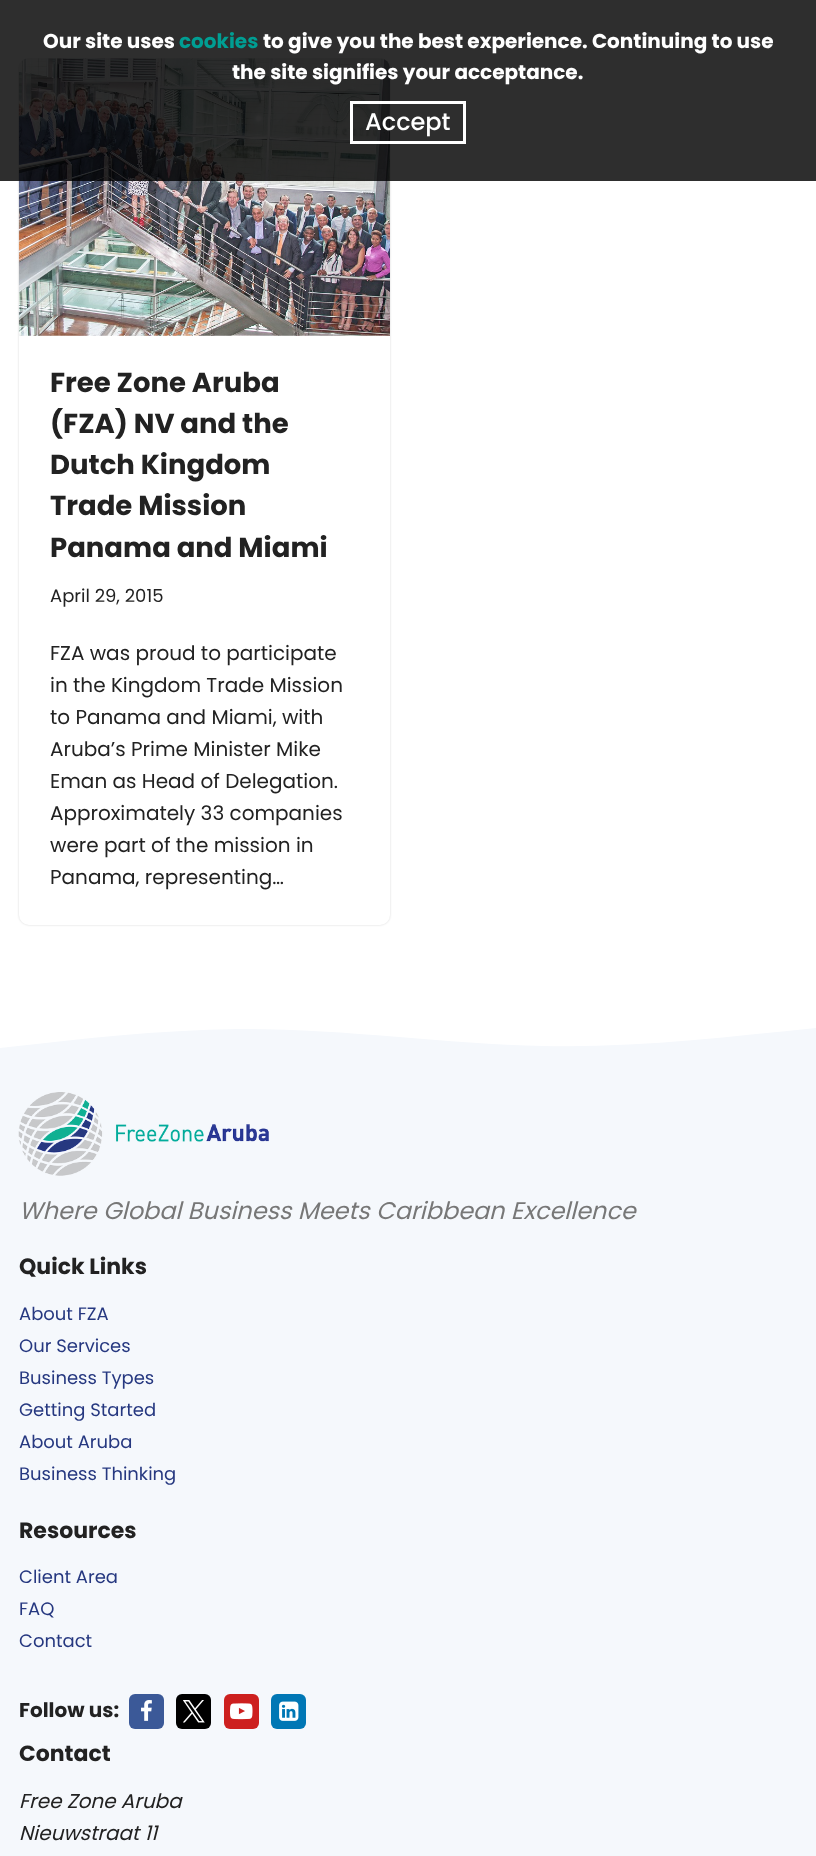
(async () => {
const canvas = document.querySelector("canvas")
canvas.width = 816
canvas.height = 1856
const c = canvas.getContext("2d")
c.miterLimit = 4
c.fontKerning = "normal"
function T(s,x,y){c.fillText(s,x,y)}
function R(x,y,w,h){c.fillRect(x,y,w,h)}
function Q(x,y,w,h,r){c.beginPath();c.roundRect(x,y,w,h,r);c.fill()}
async function I(src,x,y,w,h){const img=new Image();img.src=src;await img.decode();c.drawImage(img,x,y,w,h)}
let path
c.fillStyle="#fff"
R(0,0,816,1856)
c.fillStyle="#00000026"
c.filter="blur(1px)"
c.beginPath()
c.roundRect(19,59,371,866,10)
c.fill()
c.filter="none"
c.fillStyle="#fff"
Q(19,59,371,866,10)
await I("1.png",18,58,372,278)
c.fillStyle="#000000d1"
R(0,0,816,181)
c.font="bold 20px Poppins"
c.fillStyle="#fff"
T("Our site uses",43,48)
c.fillStyle="#009e93"
T("cookies",179,48)
c.fillStyle="#fff"
T("to give you the best experience. Continuing to use",263,48)
T("the site signifies your acceptance.",232,79)
c.strokeStyle="#fff"
c.lineWidth=3
c.strokeRect(351.5,102.5,113,40)
c.font="500 24px Poppins"
T("Accept",365,130)
c.font="bold 27.5px Poppins"
c.fillStyle="#222"
T("Free Zone Aruba",50,392)
T("(FZA) NV and the",50,433)
T("Dutch Kingdom",50,474)
T("Trade Mission",50,515)
T("Panama and Miami",50,557)
c.font="18px Poppins"
T("April 29, 2015",50,602)
c.font="20px Poppins"
T("FZA was proud to participate",50,660)
T("in the Kingdom Trade Mission",50,692)
T("to Panama and Miami, with",50,724)
T("Aruba’s Prime Minister Mike",50,756)
T("Eman as Head of Delegation.",50,788)
T("Approximately 33 companies",50,820)
T("were part of the mission in",50,852)
T("Panama, representing…",50,884)
c.fillStyle="#f5f8fc"
R(0,1088,816,768)
path = new Path2D("M0 1048c79-9 158-18 238-19c103-1 204 15 306 17c91 2 182-9 272-18v60h-816z")
c.fill(path)
await I("2.png",18,1092,251,84)
c.font="italic 24px Poppins"
c.fillStyle="#777"
T("Where Global Business Meets Caribbean Excellence",19,1219)
c.font="bold 22px Poppins"
c.fillStyle="#222"
T("Quick Links",19,1274)
c.font="18px Poppins"
c.fillStyle="#263880"
T("About FZA",19,1320)
T("Our Services",19,1352)
T("Business Types",19,1384)
T("Getting Started",19,1416)
T("About Aruba",19,1448)
T("Business Thinking",19,1480)
c.font="bold 22px Poppins"
c.fillStyle="#222"
T("Resources",19,1538)
c.font="18px Poppins"
c.fillStyle="#263880"
T("Client Area",19,1583)
T("FAQ",19,1615)
T("Contact",19,1647)
c.font="bold 20px Poppins"
c.fillStyle="#222"
T("Follow us:",19,1717)
c.fillStyle="#3b5998"
Q(129,1694,35,35,6)
await I("3.png",141,1700,11,21)
c.fillStyle="#000"
Q(176,1694,35,35,6)
await I("4.png",183,1700,22,23)
c.fillStyle="#cd201f"
Q(224,1694,35,35,6)
await I("5.png",230,1703,23,17)
c.fillStyle="#0077b5"
Q(271,1694,35,35,6)
await I("6.png",279,1701,20,20)
c.font="bold 22px Poppins"
c.fillStyle="#222"
T("Contact",19,1761)
c.font="italic 20px Poppins"
T("Free Zone Aruba",19,1808)
T("Nieuwstraat 11",19,1840)
})()
